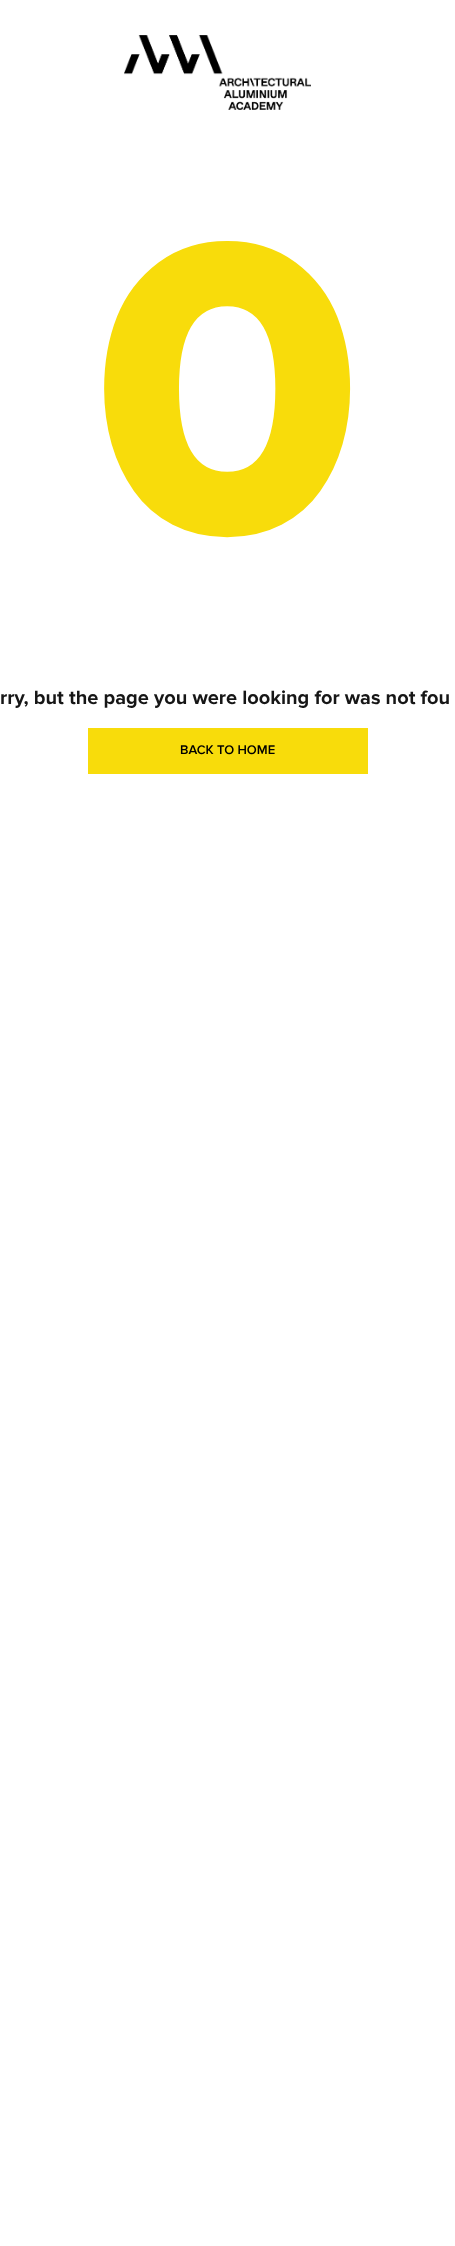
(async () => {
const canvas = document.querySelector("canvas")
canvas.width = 455
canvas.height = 2246
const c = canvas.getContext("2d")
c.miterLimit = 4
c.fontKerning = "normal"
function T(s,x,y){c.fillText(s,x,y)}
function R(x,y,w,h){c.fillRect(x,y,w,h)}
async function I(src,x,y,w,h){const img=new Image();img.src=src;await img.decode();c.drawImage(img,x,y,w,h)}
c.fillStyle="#fff"
R(0,0,455,2246)
await I("1.png",124,35,187,75)
c.font="800 430px Proxima Nova"
c.fillStyle="#f8dc0b"
T("0",93,532)
c.font="bold 20px Proxima Nova"
c.fillStyle="#161616"
T("rry, but the page you were looking for was not fou",0,704)
c.fillStyle="#f8dc0b"
R(88,728,280,46)
c.font="600 13px Proxima Nova"
c.fillStyle="#000"
T("BACK TO HOME",180,754)
})()
